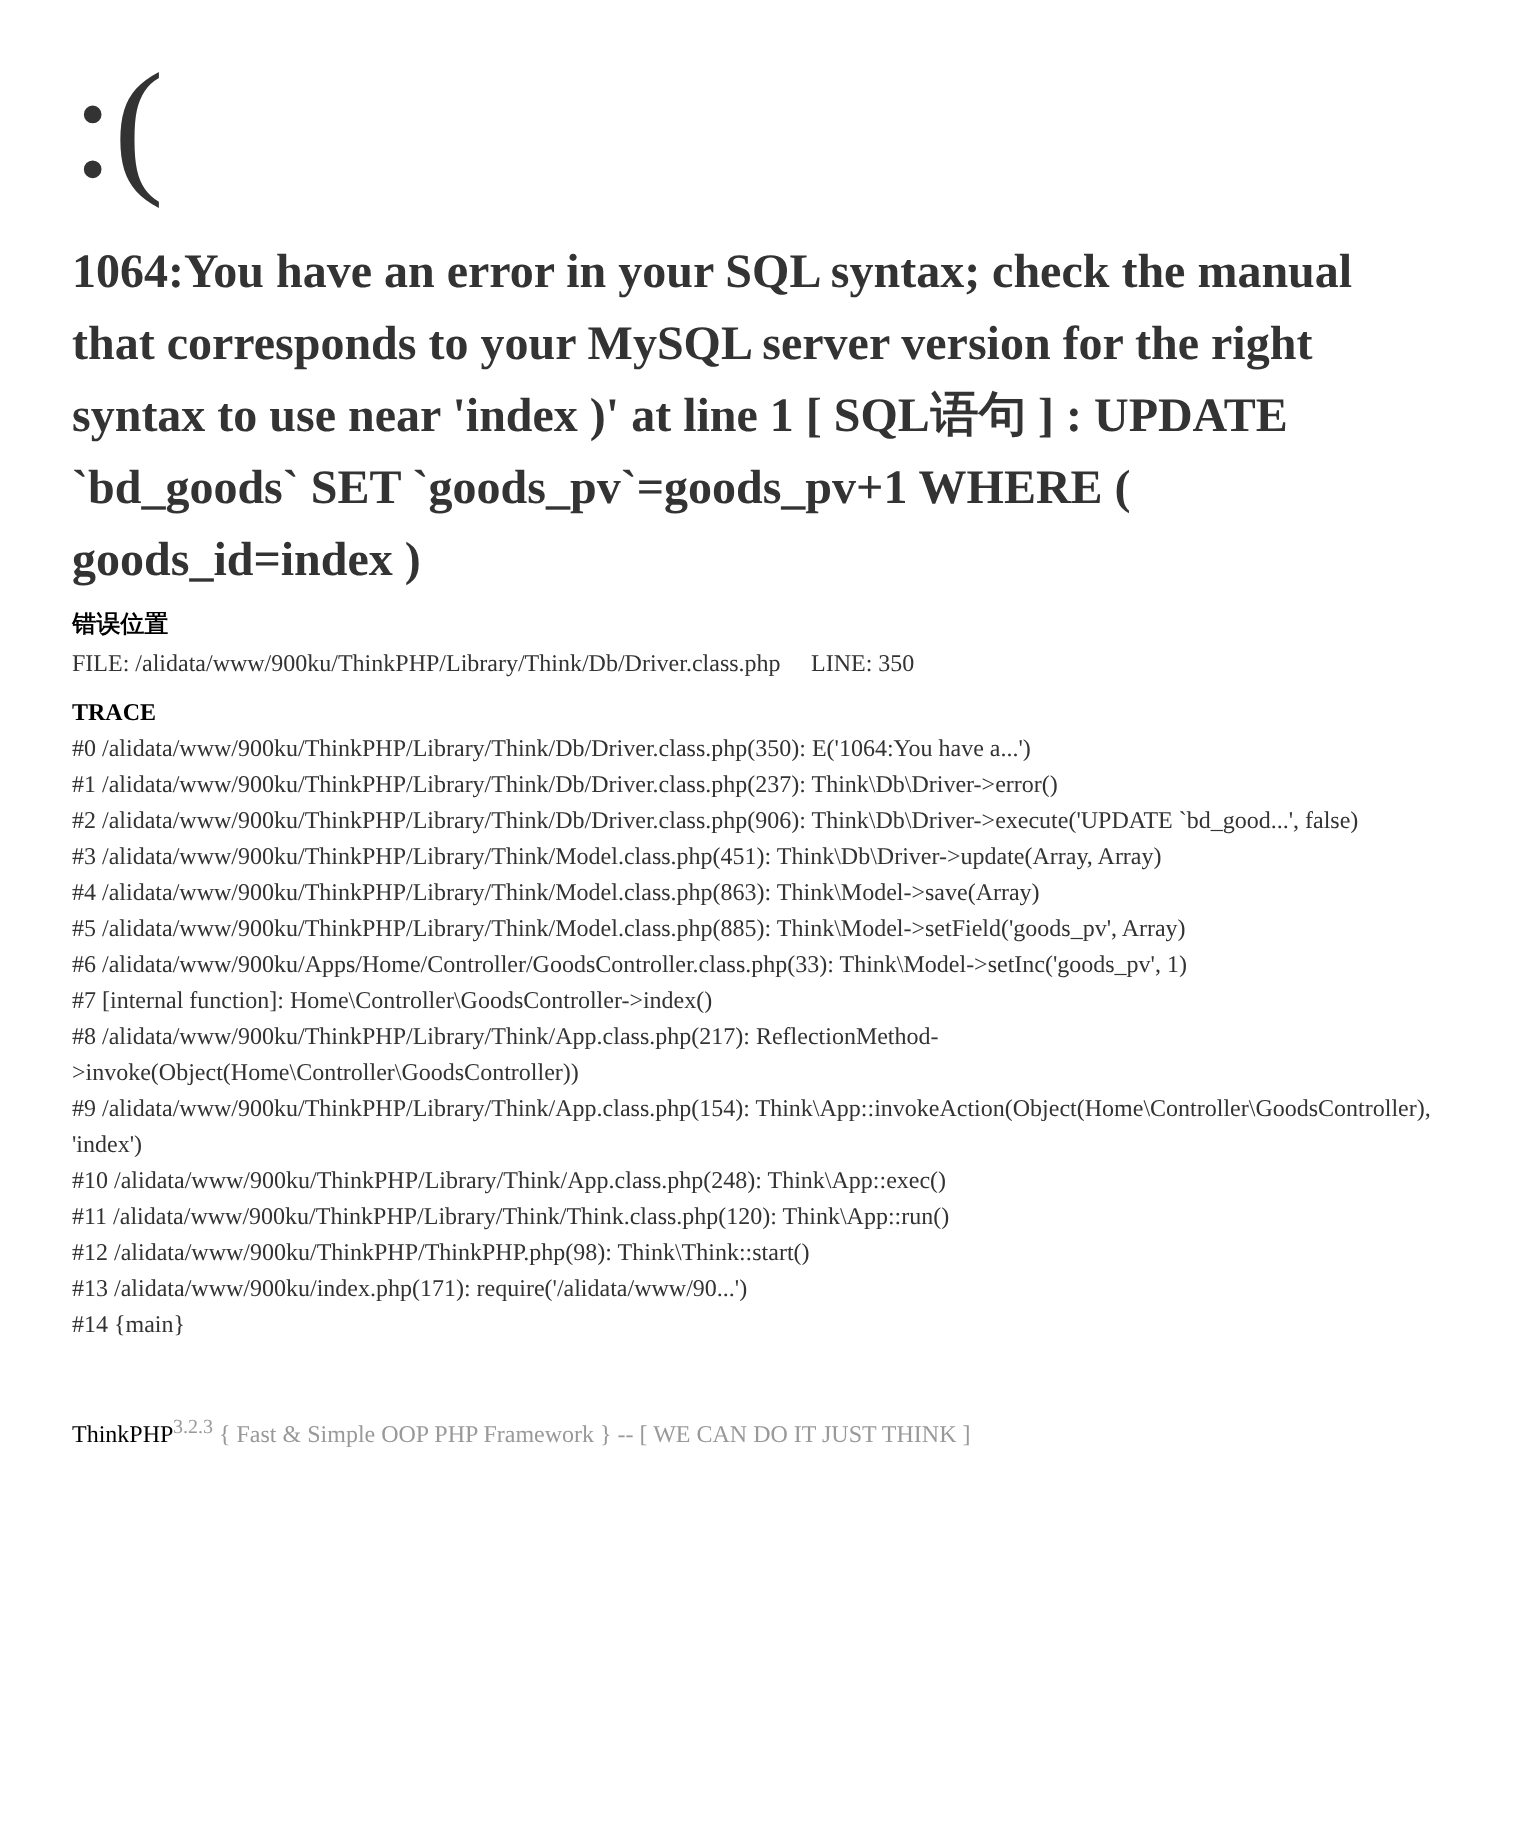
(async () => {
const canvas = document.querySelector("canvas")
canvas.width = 1514
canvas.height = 1829
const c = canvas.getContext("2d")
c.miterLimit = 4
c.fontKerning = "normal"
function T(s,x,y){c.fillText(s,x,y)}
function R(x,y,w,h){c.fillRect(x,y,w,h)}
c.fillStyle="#fff"
R(0,0,1514,1829)
c.font="150px Liberation Serif"
c.fillStyle="#333"
T(":(",72,176)
c.font="bold 48px Liberation Serif"
T("1064:You have an error in your SQL syntax; check the manual",72,287)
T("that corresponds to your MySQL server version for the right",72,359)
T("syntax to use near 'index )' at line 1 [ SQL",72,431)
c.font="bold 48px WenQuanYi Zen Hei"
T("语句",930,431)
c.font="bold 48px Liberation Serif"
T("] : UPDATE",1038,431)
T("`bd_goods` SET `goods_pv`=goods_pv+1 WHERE (",72,503)
T("goods_id=index )",72,575)
c.font="bold 24px WenQuanYi Zen Hei"
c.fillStyle="#000"
T("错误位置",72,632)
c.font="24px Liberation Serif"
c.fillStyle="#333"
T("FILE: /alidata/www/900ku/ThinkPHP/Library/Think/Db/Driver.class.php",72,671)
T("LINE: 350",811,671)
c.font="bold 24px Liberation Serif"
c.fillStyle="#000"
T("TRACE",72,720)
c.font="24px Liberation Serif"
c.fillStyle="#333"
T("#0 /alidata/www/900ku/ThinkPHP/Library/Think/Db/Driver.class.php(350): E('1064:You have a...')",72,756)
T("#1 /alidata/www/900ku/ThinkPHP/Library/Think/Db/Driver.class.php(237): Think\\Db\\Driver->error()",72,792)
T("#2 /alidata/www/900ku/ThinkPHP/Library/Think/Db/Driver.class.php(906): Think\\Db\\Driver->execute('UPDATE `bd_good...', false)",72,828)
T("#3 /alidata/www/900ku/ThinkPHP/Library/Think/Model.class.php(451): Think\\Db\\Driver->update(Array, Array)",72,864)
T("#4 /alidata/www/900ku/ThinkPHP/Library/Think/Model.class.php(863): Think\\Model->save(Array)",72,900)
T("#5 /alidata/www/900ku/ThinkPHP/Library/Think/Model.class.php(885): Think\\Model->setField('goods_pv', Array)",72,936)
T("#6 /alidata/www/900ku/Apps/Home/Controller/GoodsController.class.php(33): Think\\Model->setInc('goods_pv', 1)",72,972)
T("#7 [internal function]: Home\\Controller\\GoodsController->index()",72,1008)
T("#8 /alidata/www/900ku/ThinkPHP/Library/Think/App.class.php(217): ReflectionMethod-",72,1044)
T(">invoke(Object(Home\\Controller\\GoodsController))",72,1080)
T("#9 /alidata/www/900ku/ThinkPHP/Library/Think/App.class.php(154): Think\\App::invokeAction(Object(Home\\Controller\\GoodsController),",72,1116)
T("'index')",72,1152)
T("#10 /alidata/www/900ku/ThinkPHP/Library/Think/App.class.php(248): Think\\App::exec()",72,1188)
T("#11 /alidata/www/900ku/ThinkPHP/Library/Think/Think.class.php(120): Think\\App::run()",72,1224)
T("#12 /alidata/www/900ku/ThinkPHP/ThinkPHP.php(98): Think\\Think::start()",72,1260)
T("#13 /alidata/www/900ku/index.php(171): require('/alidata/www/90...')",72,1296)
T("#14 {main}",72,1332)
c.fillStyle="#000"
T("ThinkPHP",72,1442)
c.font="20px Liberation Serif"
c.fillStyle="#999"
T("3.2.3",173,1433)
c.font="24px Liberation Serif"
T("{ Fast & Simple OOP PHP Framework } -- [ WE CAN DO IT JUST THINK ]",219,1442)
})()
